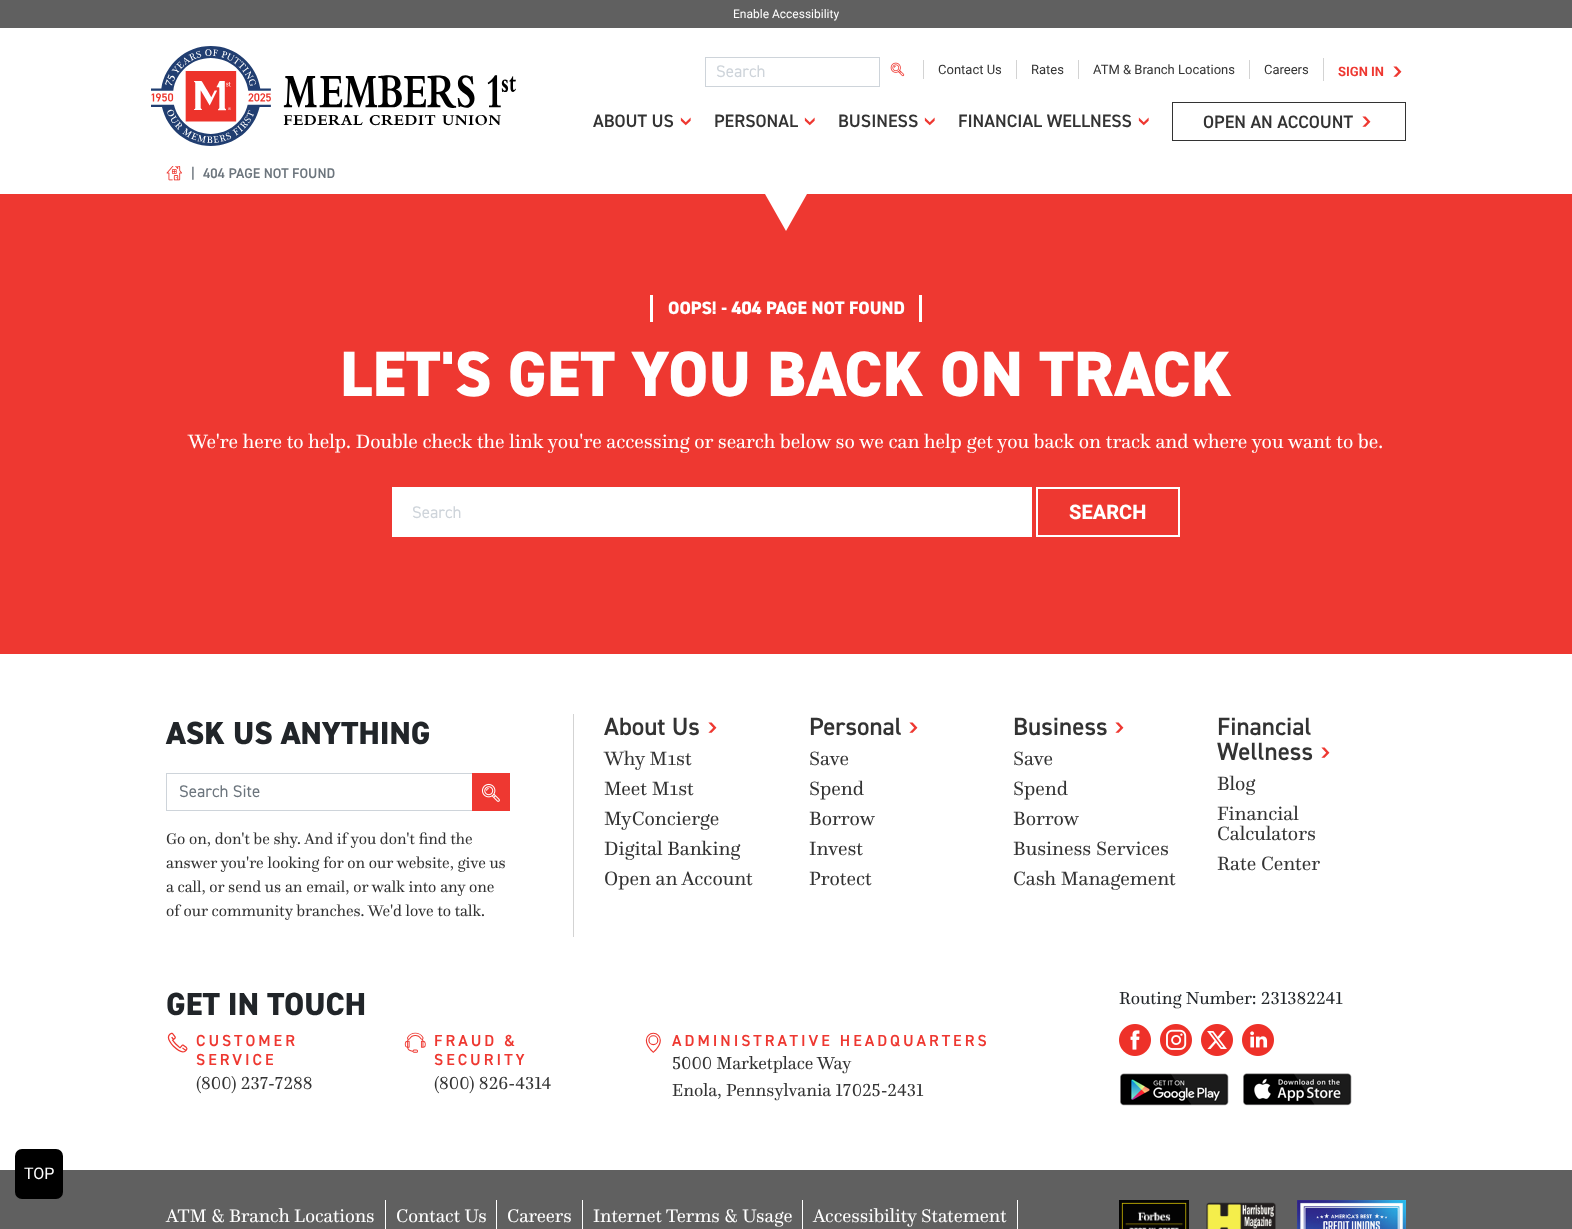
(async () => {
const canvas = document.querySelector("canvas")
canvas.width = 1572
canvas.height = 1229
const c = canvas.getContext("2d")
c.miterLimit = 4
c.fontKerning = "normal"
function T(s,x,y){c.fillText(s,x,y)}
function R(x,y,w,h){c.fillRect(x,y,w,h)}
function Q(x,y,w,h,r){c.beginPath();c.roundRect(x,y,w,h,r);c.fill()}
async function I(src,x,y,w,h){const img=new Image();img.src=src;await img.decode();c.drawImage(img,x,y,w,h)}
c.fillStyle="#fff"
R(0,0,1572,1229)
c.fillStyle="#606060"
R(0,0,1572,28)
c.font="12px Roboto"
c.fillStyle="#fff"
T("Enable Accessibility",733,18)
await I("1.png",151,46,365,100)
c.strokeStyle="#ced4da"
c.strokeRect(705.5,57.5,174,29)
c.font="17px 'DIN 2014'"
c.fillStyle="#ced4da"
T("Search",716,77)
await I("2.png",890,62,15,15)
c.fillStyle="#d3d3d3"
R(923,60,1,19)
c.font="13px Roboto"
c.fillStyle="#333"
T("Contact Us",938,74)
c.fillStyle="#d3d3d3"
R(1016,60,1,19)
c.fillStyle="#333"
T("Rates",1031,74)
c.fillStyle="#d3d3d3"
R(1078,60,1,19)
c.fillStyle="#333"
T("ATM & Branch Locations",1093,74)
c.fillStyle="#d3d3d3"
R(1249,60,1,19)
c.fillStyle="#333"
T("Careers",1264,74)
c.fillStyle="#d3d3d3"
R(1323,58,1,23)
c.font="bold 13px Roboto"
c.fillStyle="#ee3831"
T("SIGN IN",1338,76)
await I("3.png",1393,66,9,11)
c.font="600 18px 'DIN 2014'"
c.fillStyle="#333"
T("ABOUT US",593,127)
await I("4.png",680,117,11,9)
T("PERSONAL",714,127)
await I("4.png",804,117,11,9)
T("BUSINESS",838,127)
await I("4.png",924,117,11,9)
T("FINANCIAL WELLNESS",958,127)
await I("4.png",1138,117,11,9)
c.strokeStyle="#333"
c.strokeRect(1172.5,102.5,233,38)
T("OPEN AN ACCOUNT",1203,128)
await I("3.png",1362,116,9,11)
await I("5.png",166,166,16,15)
c.font="600 14px 'DIN 2014'"
c.fillStyle="#6c757d"
T("|",191,178)
T("404 PAGE NOT FOUND",203,178)
c.fillStyle="#ee3831"
R(0,194,1572,460)
await I("6.png",765,194,42,37)
c.fillStyle="#fff"
R(919,295,3,27)
R(650,295,3,27)
c.font="800 18px 'DIN 2014'"
T("OOPS! - 404 PAGE NOT FOUND",668,314)
c.font="800 64px 'DIN 2014'"
T("LET'S GET YOU BACK ON TRACK",340,396)
c.font="20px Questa"
T("We're here to help. Double check the link you're accessing or search below so we can help get you back on track and where you want to be.",188,448)
R(392,487,640,50)
c.font="17px 'DIN 2014'"
c.fillStyle="#ced4da"
T("Search",412,518)
c.strokeStyle="#fff"
c.lineWidth=2
c.strokeRect(1037,488,142,48)
c.font="800 20px Roboto"
c.fillStyle="#fff"
T("SEARCH",1069,519)
c.fillStyle="#606060"
R(0,1170,1572,59)
c.fillStyle="#000"
Q(15,1149,48,50,7)
c.font="16px Roboto"
c.fillStyle="#fff"
T("TOP",24,1179)
c.fillStyle="#d3d3d3"
R(573,714,1,223)
c.font="800 32px 'DIN 2014'"
c.fillStyle="#212529"
T("ASK US ANYTHING",166,744)
c.strokeStyle="#ced4da"
c.lineWidth=1
c.strokeRect(166.5,773.5,343,37)
c.font="17px 'DIN 2014'"
c.fillStyle="#6c757d"
T("Search Site",179,797)
c.fillStyle="#ee3831"
R(472,773,38,38)
await I("7.png",481,783,19,19)
c.font="16px Questa"
c.fillStyle="#333"
T("Go on, don't be shy. And if you don't find the",166,844)
T("answer you're looking for on our website, give us",166,868)
T("a call, or send us an email, or walk into any one",166,892)
T("of our community branches. We'd love to talk.",166,916)
c.font="600 25px 'DIN 2014'"
T("About Us",604,735)
await I("3.png",708,722,9,11)
c.font="20px Questa"
T("Why M1st",604,765)
T("Meet M1st",604,795)
T("MyConcierge",604,825)
T("Digital Banking",604,855)
T("Open an Account",604,885)
c.font="600 25px 'DIN 2014'"
T("Personal",809,735)
await I("3.png",909,722,9,11)
c.font="20px Questa"
T("Save",809,765)
T("Spend",809,795)
T("Borrow",809,825)
T("Invest",809,855)
T("Protect",809,885)
c.font="600 25px 'DIN 2014'"
T("Business",1013,735)
await I("3.png",1115,722,9,11)
c.font="20px Questa"
T("Save",1013,765)
T("Spend",1013,795)
T("Borrow",1013,825)
T("Business Services",1013,855)
T("Cash Management",1013,885)
c.font="600 25px 'DIN 2014'"
T("Financial",1217,735)
T("Wellness",1217,760)
await I("3.png",1321,747,9,11)
c.font="20px Questa"
T("Blog",1217,790)
T("Financial",1217,820)
T("Calculators",1217,840)
T("Rate Center",1217,870)
c.font="800 32px 'DIN 2014'"
c.fillStyle="#212529"
T("GET IN TOUCH",166,1015)
await I("8.png",167,1032,21,21)
c.letterSpacing="3px"
c.font="600 16px 'DIN 2014'"
c.fillStyle="#ee3831"
T("CUSTOMER",196,1046)
T("SERVICE",196,1065)
c.letterSpacing="0px"
c.font="18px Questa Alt"
c.fillStyle="#333"
T("(800) 237-7288",196,1089)
await I("9.png",404,1032,22,21)
c.letterSpacing="3px"
c.font="600 16px 'DIN 2014'"
c.fillStyle="#ee3831"
T("FRAUD &",434,1046)
T("SECURITY",434,1065)
c.letterSpacing="0px"
c.font="18px Questa Alt"
c.fillStyle="#333"
T("(800) 826-4314",434,1089)
await I("10.png",645,1032,16,21)
c.letterSpacing="3px"
c.font="600 16px 'DIN 2014'"
c.fillStyle="#ee3831"
T("ADMINISTRATIVE HEADQUARTERS",672,1046)
c.letterSpacing="0px"
c.font="18px Questa Alt"
c.fillStyle="#333"
T("5000 Marketplace Way",672,1069)
T("Enola, Pennsylvania 17025-2431",672,1096)
c.fillStyle="#212529"
T("Routing Number: 231382241",1119,1004)
await I("11.png",1119,1024,32,32)
await I("12.png",1160,1024,32,32)
await I("13.png",1201,1024,32,32)
await I("14.png",1242,1024,32,32)
await I("15.png",1120,1073,109,33)
await I("16.png",1243,1073,109,33)
c.fillStyle="#fff"
R(385,1200,1,29)
c.font="19px Questa"
T("ATM & Branch Locations",166,1222)
R(496,1200,1,29)
T("Contact Us",396,1222)
R(582,1200,1,29)
T("Careers",507,1222)
R(802,1200,1,29)
T("Internet Terms & Usage",593,1222)
R(1017,1200,1,29)
T("Accessibility Statement",813,1222)
await I("17.png",1119,1200,70,29)
await I("18.png",1206,1202,70,27)
await I("19.png",1297,1200,109,29)
})()
